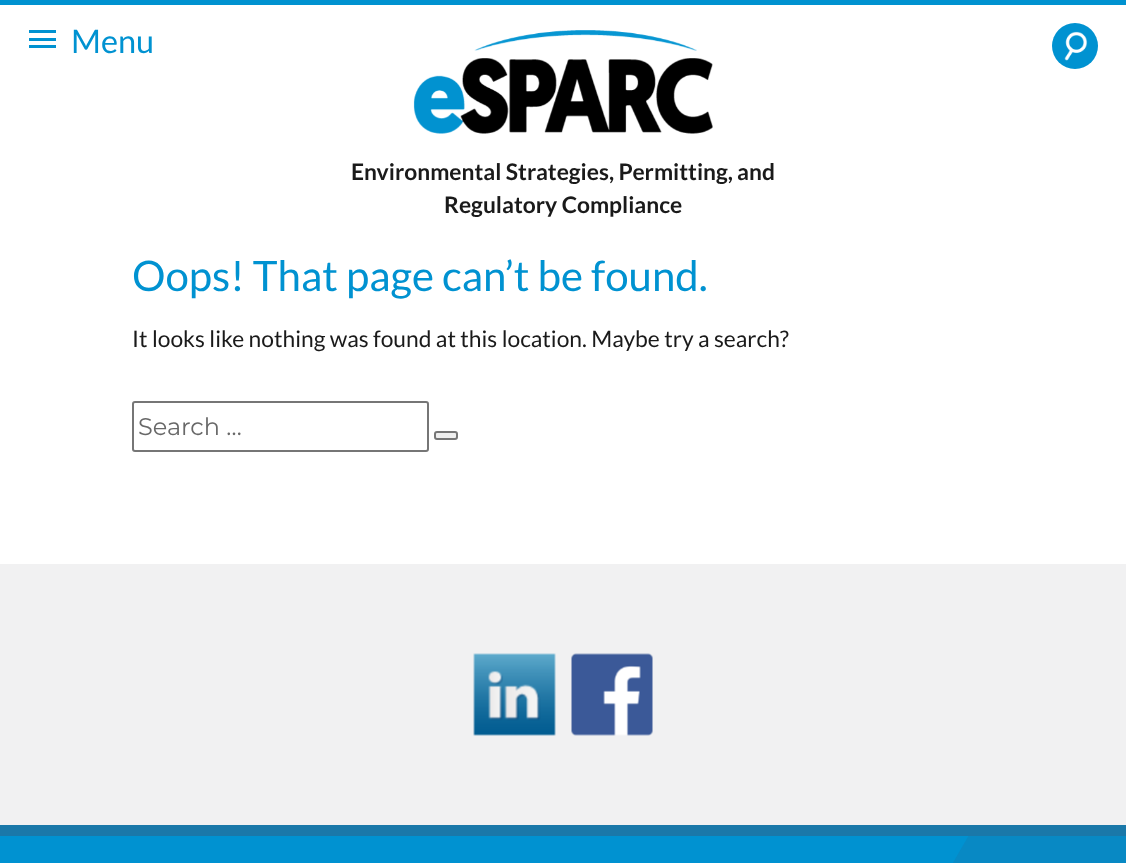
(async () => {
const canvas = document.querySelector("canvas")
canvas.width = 1126
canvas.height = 863
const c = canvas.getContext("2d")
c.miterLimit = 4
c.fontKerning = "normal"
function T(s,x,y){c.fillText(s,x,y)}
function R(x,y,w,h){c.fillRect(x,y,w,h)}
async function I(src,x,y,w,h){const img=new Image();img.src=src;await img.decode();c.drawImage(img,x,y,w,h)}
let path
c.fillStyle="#fff"
R(0,0,1126,863)
c.fillStyle="#0092d1"
R(29,30,27,3)
R(29,38,27,3)
R(29,45,27,3)
c.font="32.5px Lato"
T("Menu",71,53)
await I("1.png",413,30,300,104)
c.beginPath()
c.arc(1075,46,23,0,7)
c.fill()
await I("2.png",1064,31,24,30)
c.fillStyle="#0092d0"
R(0,0,1126,5)
c.font="bold 22.8px Lato"
c.fillStyle="#1a1a1a"
T("Environmental Strategies, Permitting,",351,180)
T("and",737,180)
T("Regulatory Compliance",444,213)
c.font="42px Lato"
c.fillStyle="#0092d1"
T("Oops! That page can’t be found.",132,291)
c.font="22.8px Lato"
c.fillStyle="#1a1a1a"
T("It looks like nothing was found at this location. Maybe try a search?",132,347)
c.beginPath()
c.roundRect(133,402,295,49,2)
c.strokeStyle="#767676"
c.lineWidth=2
c.stroke()
c.font="24px Montserrat"
c.fillStyle="#686868"
T("Search …",138,435)
c.fillStyle="#efefef"
c.beginPath()
c.roundRect(435,432,22,7,2)
c.fill()
c.stroke()
c.fillStyle="#f1f1f2"
R(0,564,1126,261)
await I("3.png",473,653,83,83)
await I("4.png",571,653,82,83)
c.fillStyle="#0092d1"
R(0,836,969,27)
c.fillStyle="#1a78a9"
R(0,825,1126,11)
c.save()
c.beginPath()
c.rect(0,836,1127,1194)
c.clip()
c.fillStyle="#0889c4"
path = new Path2D("M969 835h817l-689 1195h-818z")
c.fill(path)
c.restore()
})()
